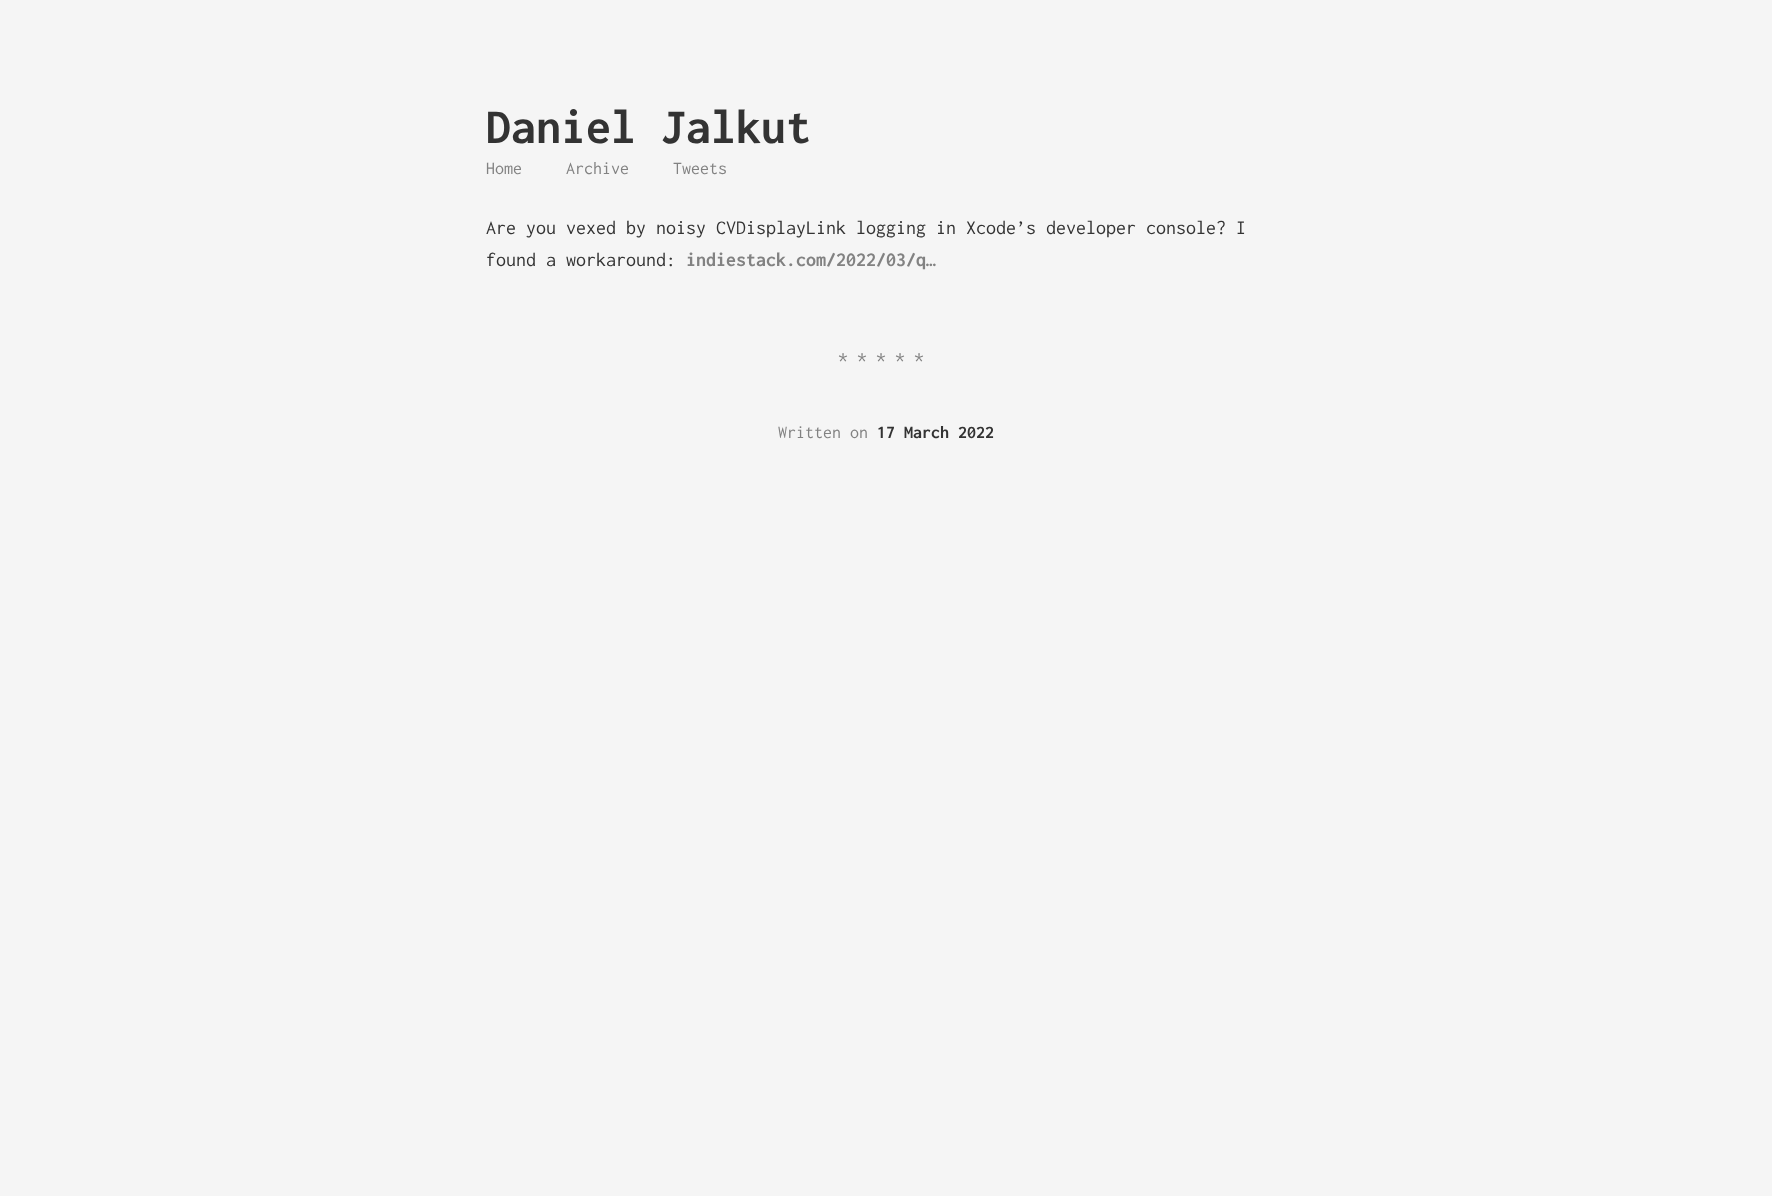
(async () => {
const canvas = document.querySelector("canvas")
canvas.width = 1772
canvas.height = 1196
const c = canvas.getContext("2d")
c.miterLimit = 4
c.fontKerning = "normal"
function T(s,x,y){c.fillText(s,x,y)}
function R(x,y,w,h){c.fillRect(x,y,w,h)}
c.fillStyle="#f5f5f5"
R(0,0,1772,1196)
c.font="bold 50px Inconsolata"
c.fillStyle="#333"
T("Daniel Jalkut",486,143)
c.font="18px Inconsolata"
c.fillStyle="#828282"
T("Home",486,174)
T("Archive",566,174)
T("Tweets",673,174)
c.font="20px Inconsolata"
c.fillStyle="#333"
T("Are you vexed by noisy CVDisplayLink logging in Xcode’s developer console? I",486,234)
T("found a workaround:",486,266)
c.font="bold 20px Inconsolata"
c.fillStyle="#828282"
T("indiestack.com/2022/03/q…",686,266)
c.letterSpacing="9px"
c.font="20px Inconsolata"
T("*****",838,364)
c.letterSpacing="0px"
c.font="18px Inconsolata"
T("Written on",778,438)
c.font="bold 18px Inconsolata"
c.fillStyle="#333"
T("17 March 2022",877,438)
})()
